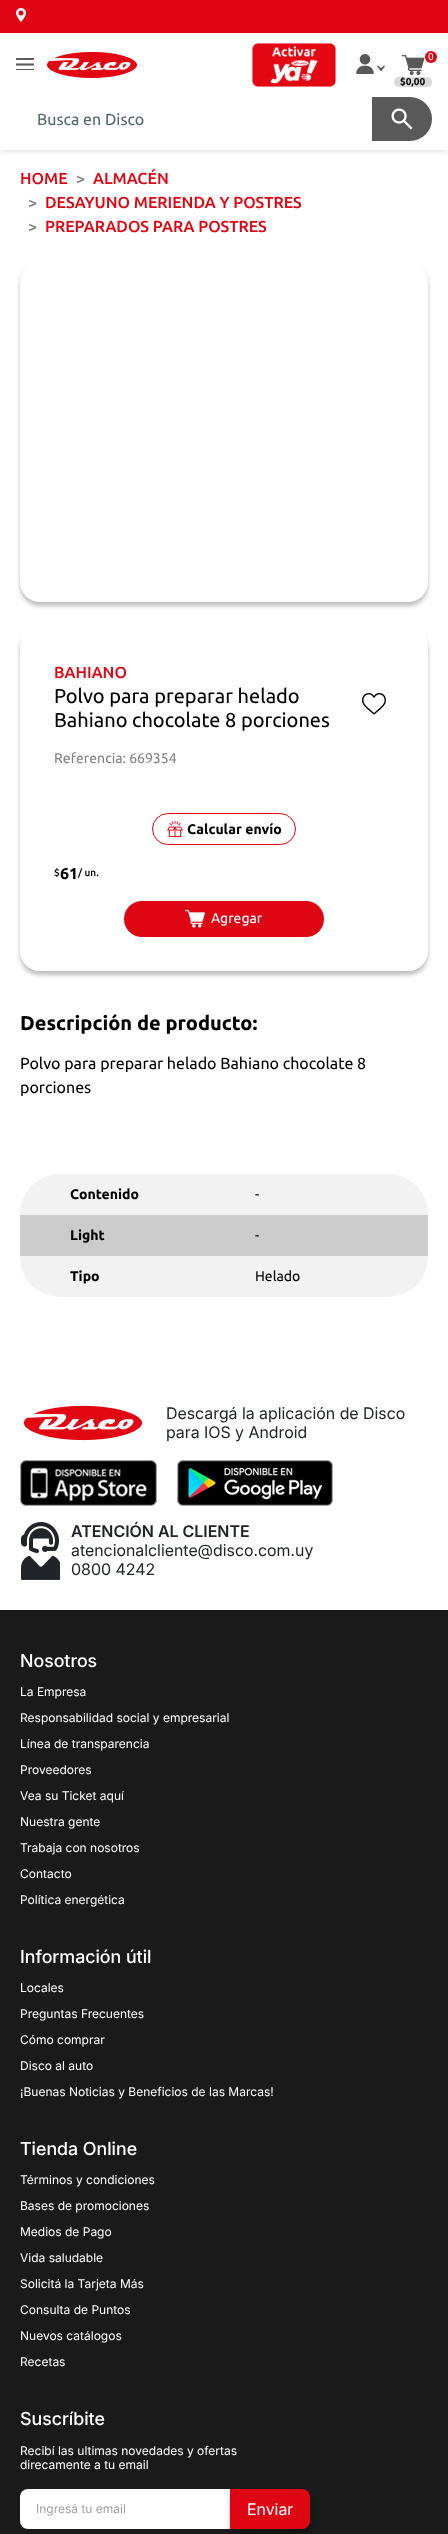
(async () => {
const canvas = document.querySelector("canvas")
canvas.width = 448
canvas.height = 2534
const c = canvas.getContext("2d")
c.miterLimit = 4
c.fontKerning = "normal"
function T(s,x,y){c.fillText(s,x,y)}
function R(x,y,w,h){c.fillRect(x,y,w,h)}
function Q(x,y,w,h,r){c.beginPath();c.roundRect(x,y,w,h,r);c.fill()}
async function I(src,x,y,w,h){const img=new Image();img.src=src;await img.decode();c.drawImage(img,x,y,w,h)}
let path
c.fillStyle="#fff"
R(0,0,448,2534)
c.save()
c.beginPath()
c.rect(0,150,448,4)
c.clip()
c.fillStyle="#0000001a"
c.filter="blur(2.5px)"
c.beginPath()
c.rect(0,2,448,150)
c.fill()
c.filter="none"
c.restore()
c.fillStyle="#de0613"
R(0,0,448,33)
await I("1.png",16,8,10,14)
c.fillStyle="#595959"
R(16,58,18,2)
path = new Path2D("M16 64.5h18")
c.strokeStyle="#595959"
c.lineWidth=2.1
c.stroke(path)
R(16,69,18,1)
await I("2.png",47,51,90,27)
await I("3.png",252,43,84,44)
await I("4.png",356,54,18,20)
path = new Path2D("M384 65.5l1 1l-4 4.5l-1.5-1.5z")
c.fill(path)
path = new Path2D("M378 65.5l4.5 4l-1.5 1.5l-4-4.5z")
c.fill(path)
await I("5.png",401,55,24,20)
c.fillStyle="#de0613"
c.beginPath()
c.arc(431,57,6,0,7)
c.fill()
c.font="10px Ubuntu"
c.fillStyle="#fff"
T("0",428,60)
c.fillStyle="#d9d9d9"
Q(394,77,38,10,5)
c.font="bold 10px Ubuntu"
c.fillStyle="#000"
T("$0,00",400,85)
c.font="16px Ubuntu"
c.fillStyle="#52686d"
T("Busca en Disco",37,125)
c.fillStyle="#595959"
c.beginPath()
c.roundRect(372,97,60,44,[0,22,22,0])
c.fill()
await I("6.png",391,108,22,22)
c.font="500 16px Ubuntu"
c.fillStyle="#de0613"
T("HOME",20,184)
c.fillStyle="#838383"
T(">",76,184)
c.fillStyle="#de0613"
T("ALMACÉN",93,184)
c.fillStyle="#838383"
T(">",28,208)
c.fillStyle="#de0613"
T("DESAYUNO MERIENDA Y POSTRES",45,208)
c.fillStyle="#838383"
T(">",28,232)
c.fillStyle="#de0613"
T("PREPARADOS PARA POSTRES",45,232)
c.fillStyle="#00000040"
c.filter="blur(2px)"
c.beginPath()
c.roundRect(20,266,408,340,20)
c.fill()
c.filter="none"
c.fillStyle="#fff"
Q(20,262,408,340,20)
c.fillStyle="#00000040"
c.filter="blur(2px)"
c.beginPath()
c.roundRect(20,630,408,345,20)
c.fill()
c.filter="none"
c.fillStyle="#fff"
Q(20,626,408,345,20)
c.fillStyle="#de0613"
T("BAHIANO",54,678)
c.font="20px Ubuntu"
c.fillStyle="#000"
T("Polvo para preparar helado",54,703)
T("Bahiano chocolate 8 porciones",54,727)
await I("7.png",362,693,24,22)
c.font="14px Ubuntu"
c.fillStyle="#838383"
T("Referencia: 669354",54,763)
c.beginPath()
c.roundRect(152.5,813.5,143,31,15.5)
c.strokeStyle="#de0613"
c.lineWidth=1
c.stroke()
await I("8.png",167,821,16,16)
c.font="bold 14px Ubuntu"
c.fillStyle="#000"
T("Calcular envío",187,834)
c.font="500 10px Ubuntu"
T("$",54,876)
c.font="bold 16px Ubuntu"
T("61",60,879)
c.font="500 10px Ubuntu"
T("/ un.",78,876)
c.fillStyle="#de0613"
Q(124,901,200,36,18)
await I("9.png",185,910,20,18)
c.font="14px Ubuntu"
c.fillStyle="#fff"
T("Agregar",211,923)
c.font="bold 20px Ubuntu"
c.fillStyle="#000"
T("Descripción de producto:",20,1030)
c.font="16px Ubuntu"
T("Polvo para preparar helado Bahiano chocolate 8",20,1069)
T("porciones",20,1093)
c.fillStyle="#f2f2f2"
Q(20,1174,408,123,40)
c.font="bold 14px Ubuntu"
c.fillStyle="#000"
T("Contenido",70,1199)
c.font="14px Ubuntu"
T("-",255,1199)
c.fillStyle="#ccc"
R(20,1215,408,41)
c.font="bold 14px Ubuntu"
c.fillStyle="#000"
T("Light",70,1240)
c.font="14px Ubuntu"
T("-",255,1240)
c.font="bold 14px Ubuntu"
T("Tipo",70,1281)
c.font="14px Ubuntu"
T("Helado",255,1281)
await I("10.png",23,1405,120,36)
c.font="16px Inter"
c.fillStyle="#212529"
T("Descargá la aplicación de Disco",166,1419)
T("para IOS y Android",166,1438)
await I("11.png",20,1460,137,46)
await I("12.png",177,1460,156,46)
await I("13.png",21,1522,39,58)
c.font="600 16px Inter"
T("ATENCIÓN AL CLIENTE",71,1537)
c.font="16px Inter"
T("atencionalcliente@disco.com.uy",71,1556)
T("0800 4242",71,1575)
c.fillStyle="#1a1a1a"
R(0,1610,448,924)
c.font="500 18px Inter"
c.fillStyle="#fff"
T("Nosotros",20,1667)
c.font="12px 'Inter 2'"
T("La Empresa",20,1696)
T("Responsabilidad social y empresarial",20,1722)
T("Línea de transparencia",20,1748)
T("Proveedores",20,1774)
T("Vea su Ticket aquí",20,1800)
T("Nuestra gente",20,1826)
T("Trabaja con nosotros",20,1852)
T("Contacto",20,1878)
T("Política energética",20,1904)
c.font="500 18px Inter"
T("Información útil",20,1963)
c.font="12px 'Inter 2'"
T("Locales",20,1992)
T("Preguntas Frecuentes",20,2018)
T("Cómo comprar",20,2044)
T("Disco al auto",20,2070)
T("¡Buenas Noticias y Beneficios de las Marcas!",20,2096)
c.font="500 18px Inter"
T("Tienda Online",20,2155)
c.font="12px 'Inter 2'"
T("Términos y condiciones",20,2184)
T("Bases de promociones",20,2210)
T("Medios de Pago",20,2236)
T("Vida saludable",20,2262)
T("Solicitá la Tarjeta Más",20,2288)
T("Consulta de Puntos",20,2314)
T("Nuevos catálogos",20,2340)
T("Recetas",20,2366)
c.font="500 18px Inter"
T("Suscríbite",20,2425)
c.font="12px 'Inter 2'"
T("Recibí las ultimas novedades y ofertas",20,2455)
T("direcamente a tu email",20,2469)
c.beginPath()
c.roundRect(20,2489,210,40,[8,0,0,8])
c.fill()
c.fillStyle="#a1a1a1"
T("Ingresá tu email",36,2513)
c.fillStyle="#00000040"
c.filter="blur(2px)"
c.beginPath()
c.roundRect(230,2493,80,40,8)
c.fill()
c.filter="none"
c.fillStyle="#de0613"
c.beginPath()
c.roundRect(230,2489,80,40,[0,8,8,0])
c.fill()
c.font="16px Inter"
c.fillStyle="#fff"
T("Enviar",247,2515)
})()
